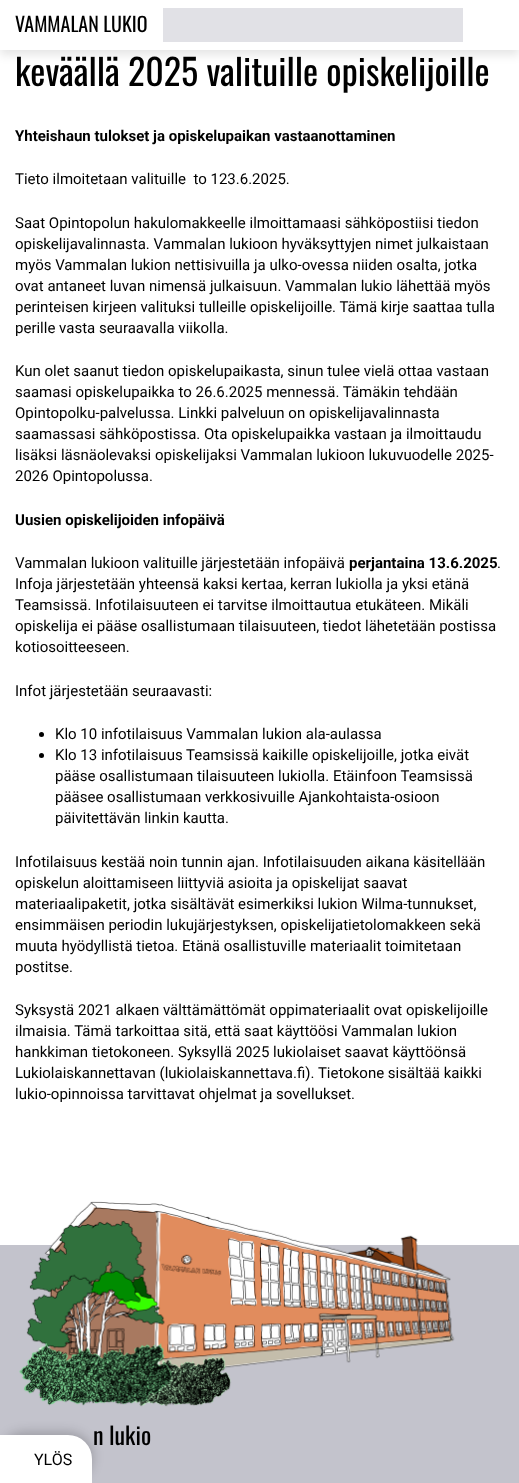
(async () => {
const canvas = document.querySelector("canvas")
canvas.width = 519
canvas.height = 1483
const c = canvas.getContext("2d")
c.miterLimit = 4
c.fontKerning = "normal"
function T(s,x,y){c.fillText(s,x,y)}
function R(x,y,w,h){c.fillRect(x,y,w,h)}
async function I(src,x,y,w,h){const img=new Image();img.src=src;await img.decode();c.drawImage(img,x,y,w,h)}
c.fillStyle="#c3c3cc"
R(0,0,519,1483)
c.fillStyle="#fff"
R(0,50,519,1195)
c.fillStyle="#0000001a"
c.filter="blur(5px)"
c.beginPath()
c.rect(0,5,519,50)
c.fill()
c.filter="none"
c.fillStyle="#fff"
R(0,0,519,50)
c.font="20px Oswald"
c.fillStyle="#000"
T("VAMMALAN LUKIO",15,32)
c.fillStyle="#e1e1e6"
R(163,8,300,34)
c.fillStyle="#00000033"
c.filter="blur(5.5px)"
c.beginPath()
c.roundRect(-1,1432,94,50,25)
c.fill()
c.filter="none"
c.fillStyle="#fff"
c.beginPath()
c.roundRect(0,1435,92,48,[0,24,0,0])
c.fill()
c.font="16px Roboto"
c.fillStyle="#000"
T("YLÖS",34,1465)
c.font="36px Oswald"
T("keväällä 2025 valituille opiskelijoille",15,86)
c.font="bold 15px Roboto"
T("Yhteishaun tulokset ja opiskelupaikan vastaanottaminen",15,141)
c.font="15px Roboto"
T("Tieto ilmoitetaan valituille  to 123.6.2025.",15,184)
T("Saat Opintopolun hakulomakkeelle ilmoittamaasi sähköpostiisi tiedon",15,228)
T("opiskelijavalinnasta. Vammalan lukioon hyväksyttyjen nimet julkaistaan",15,249)
T("myös Vammalan lukion nettisivuilla ja ulko-ovessa niiden osalta, jotka",15,270)
T("ovat antaneet luvan nimensä julkaisuun. Vammalan lukio lähettää myös",15,291)
T("perinteisen kirjeen valituksi tulleille opiskelijoille. Tämä kirje saattaa tulla",15,312)
T("perille vasta seuraavalla viikolla.",15,333)
T("Kun olet saanut tiedon opiskelupaikasta, sinun tulee vielä ottaa vastaan",15,376)
T("saamasi opiskelupaikka to 26.6.2025 mennessä. Tämäkin tehdään",15,397)
T("Opintopolku-palvelussa. Linkki palveluun on opiskelijavalinnasta",15,418)
T("saamassasi sähköpostissa. Ota opiskelupaikka vastaan ja ilmoittaudu",15,439)
T("lisäksi läsnäolevaksi opiskelijaksi Vammalan lukioon lukuvuodelle 2025-",15,460)
T("2026 Opintopolussa.",15,481)
c.font="bold 15px Roboto"
T("Uusien opiskelijoiden infopäivä",15,525)
c.font="15px Roboto"
T("Vammalan lukioon valituille järjestetään infopäivä",15,568)
c.font="bold 15px Roboto"
T("perjantaina 13.6.2025",349,568)
c.font="15px Roboto"
T(".",497,568)
T("Infoja järjestetään yhteensä kaksi kertaa, kerran lukiolla ja yksi etänä",15,589)
T("Teamsissä. Infotilaisuuteen ei tarvitse ilmoittautua etukäteen. Mikäli",15,610)
T("opiskelija ei pääse osallistumaan tilaisuuteen, tiedot lähetetään postissa",15,631)
T("kotiosoitteeseen.",15,652)
T("Infot järjestetään seuraavasti:",15,696)
c.beginPath()
c.arc(41.5,734.5,2.5,0,7)
c.fill()
T("Klo 10 infotilaisuus Vammalan lukion ala-aulassa",55,739)
c.beginPath()
c.arc(41.5,755.5,2.5,0,7)
c.fill()
T("Klo 13 infotilaisuus Teamsissä kaikille opiskelijoille, jotka eivät",55,760)
T("pääse osallistumaan tilaisuuteen lukiolla. Etäinfoon Teamsissä",55,781)
T("pääsee osallistumaan verkkosivuille Ajankohtaista-osioon",55,802)
T("päivitettävän linkin kautta.",55,823)
T("Infotilaisuus kestää noin tunnin ajan. Infotilaisuuden aikana käsitellään",15,867)
T("opiskelun aloittamiseen liittyviä asioita ja opiskelijat saavat",15,888)
T("materiaalipaketit, jotka sisältävät esimerkiksi lukion Wilma-tunnukset,",15,909)
T("ensimmäisen periodin lukujärjestyksen, opiskelijatietolomakkeen sekä",15,930)
T("muuta hyödyllistä tietoa. Etänä osallistuville materiaalit toimitetaan",15,951)
T("postitse.",15,972)
T("Syksystä 2021 alkaen välttämättömät oppimateriaalit ovat opiskelijoille",15,1015)
T("ilmaisia. Tämä tarkoittaa sitä, että saat käyttöösi Vammalan lukion",15,1036)
T("hankkiman tietokoneen. Syksyllä 2025 lukiolaiset saavat käyttöönsä",15,1057)
T("Lukiolaiskannettavan (lukiolaiskannettava.fi). Tietokone sisältää kaikki",15,1078)
T("lukio-opinnoissa tarvittavat ohjelmat ja sovellukset.",15,1099)
await I("1.png",19,1201,436,206)
c.font="24px Oswald"
T("n lukio",93,1445)
})()
